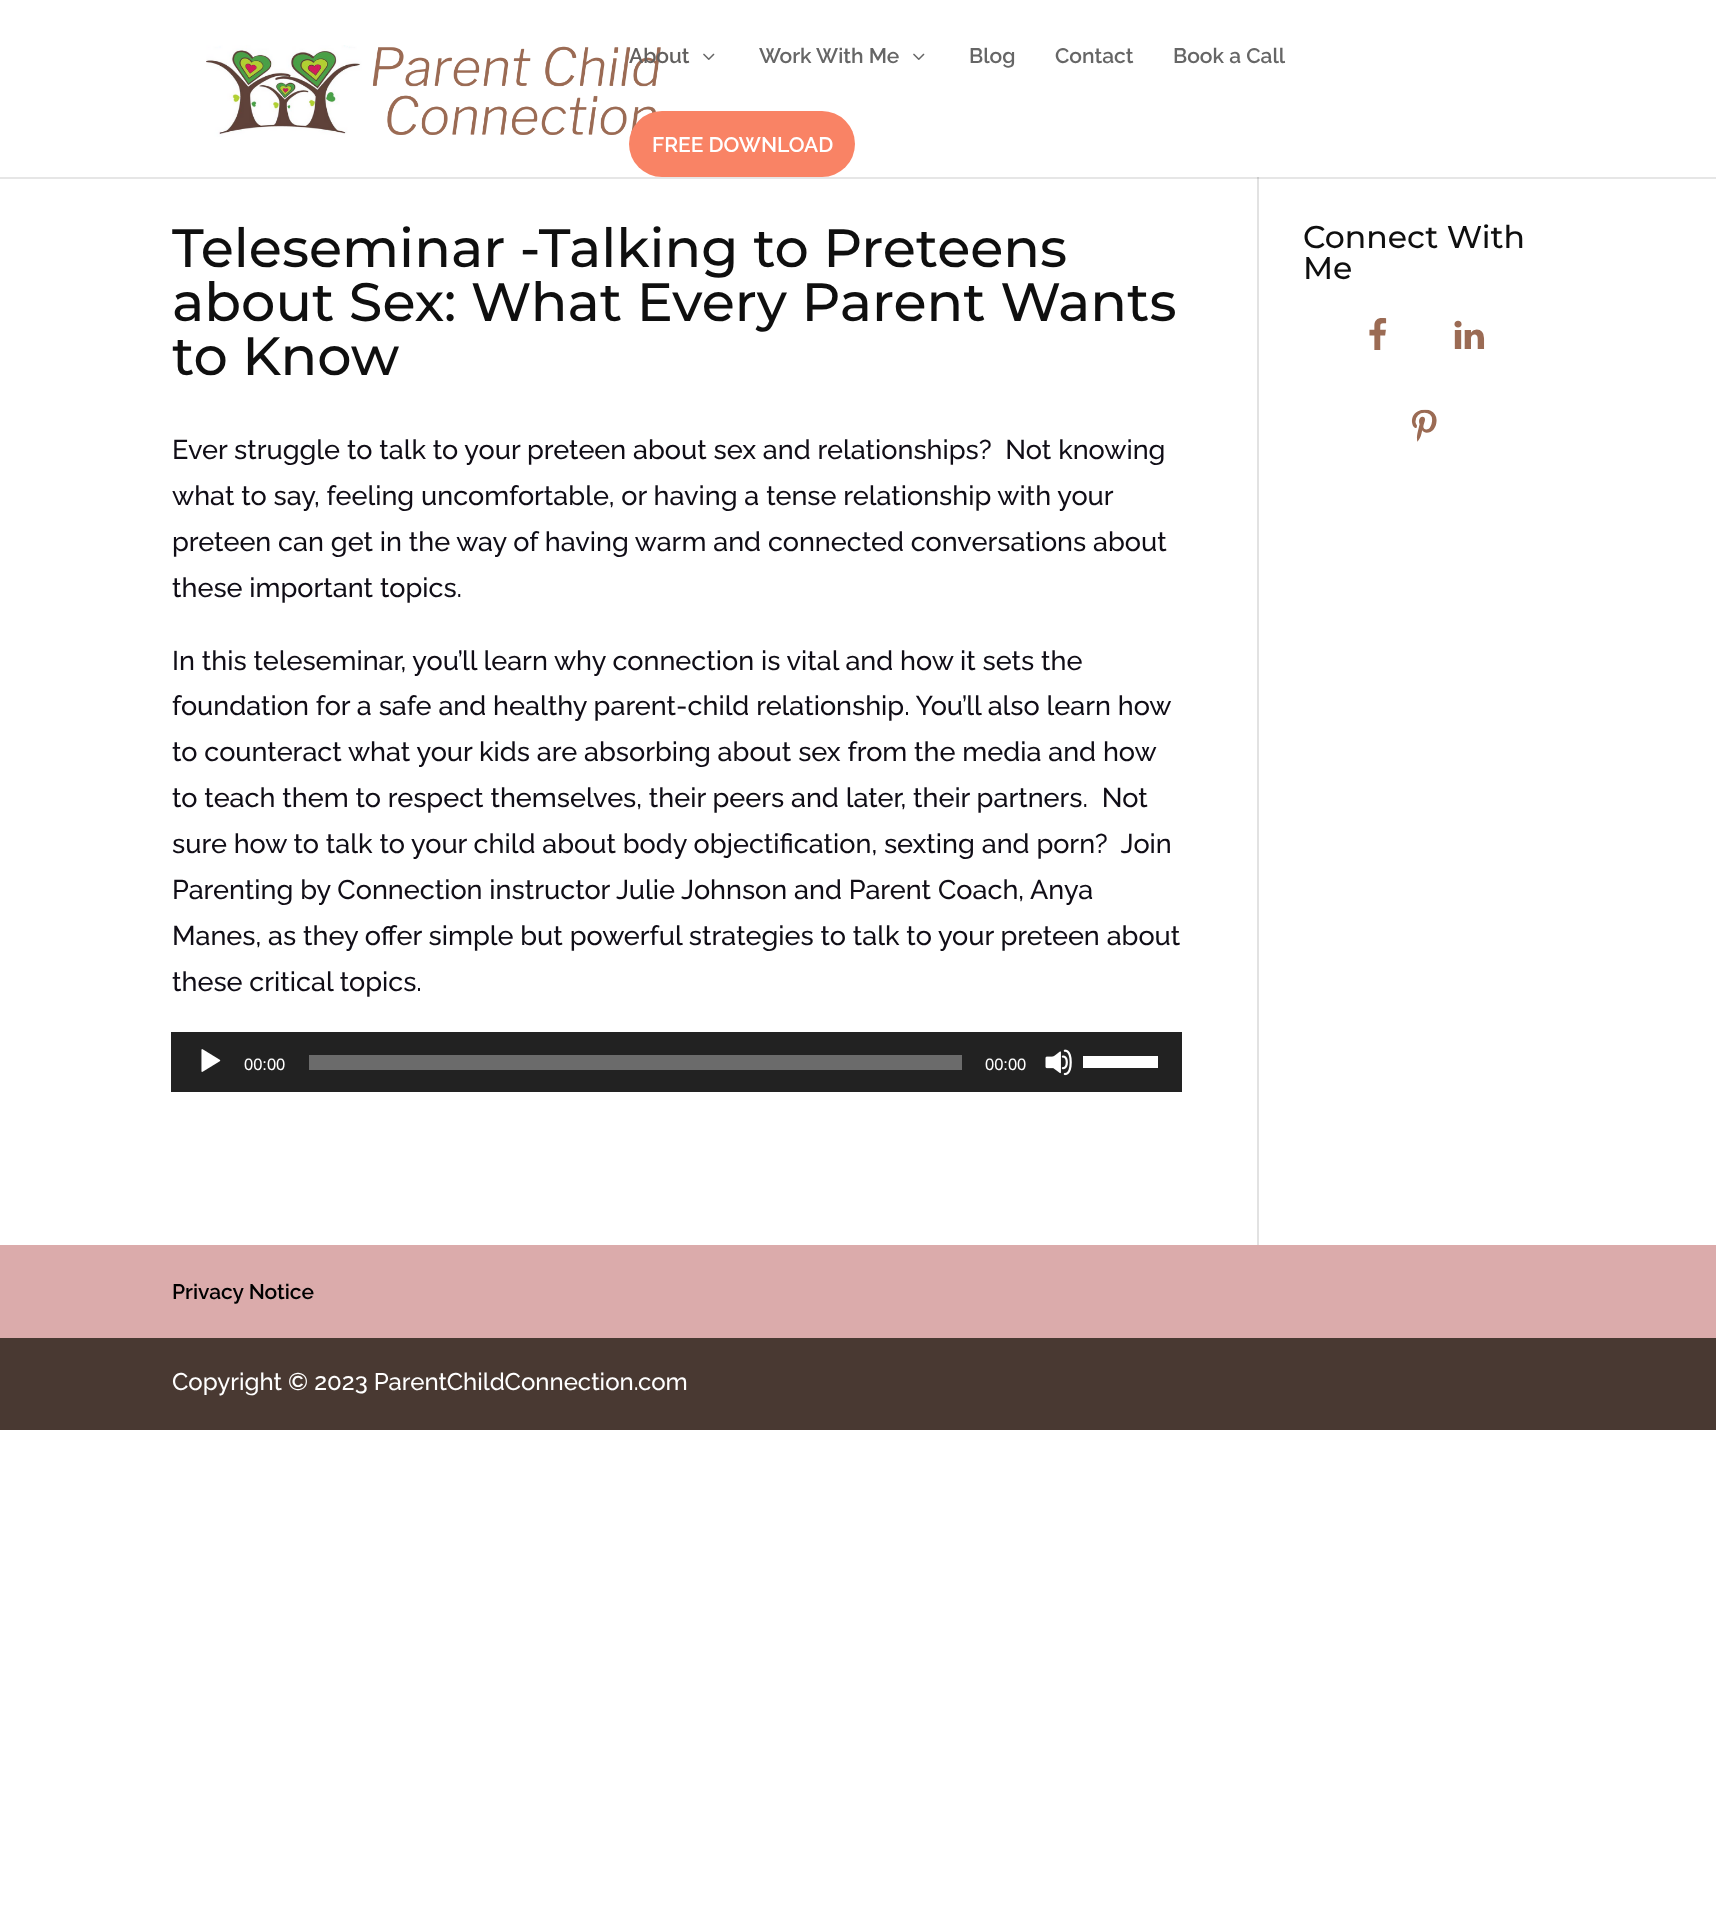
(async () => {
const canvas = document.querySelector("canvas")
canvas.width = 1716
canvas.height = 1922
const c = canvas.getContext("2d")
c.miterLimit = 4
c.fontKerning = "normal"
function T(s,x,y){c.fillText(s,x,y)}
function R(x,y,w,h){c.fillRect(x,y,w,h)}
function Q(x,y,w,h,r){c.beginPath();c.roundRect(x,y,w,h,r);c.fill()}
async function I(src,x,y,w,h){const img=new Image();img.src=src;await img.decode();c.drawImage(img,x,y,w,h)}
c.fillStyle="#fff"
R(0,0,1716,1922)
c.fillStyle="#e6e6e6"
R(0,177,1716,2)
await I("1.png",206,45,455,92)
c.font="600 21px Raleway"
c.fillStyle="#62605f"
T("About",629,63)
await I("2.png",703,53,12,7)
c.fillStyle="#666"
T("Work With Me",759,63)
await I("2.png",913,53,12,7)
T("Blog",969,63)
T("Contact",1055,63)
T("Book a Call",1173,63)
c.fillStyle="#f98365"
Q(629,111,226,66,33)
c.fillStyle="#fff"
T("FREE DOWNLOAD",652,152)
c.fillStyle="#e2e2e2"
R(1257,179,2,1066)
c.fillStyle="#cbcbcb"
R(1257,177,2,2)
c.font="500 54px Montserrat"
c.fillStyle="#0f0f0f"
T("Teleseminar -Talking to Preteens",172,267)
T("about Sex: What Every Parent Wants",172,321)
T("to Know",172,375)
c.font="500 27px Raleway"
c.fillStyle="#100d16"
T("Ever struggle to talk to your preteen about sex and relationships?  Not knowing",172,459)
T("what to say, feeling uncomfortable, or having a tense relationship with your",172,505)
T("preteen can get in the way of having warm and connected conversations about",172,551)
T("these important topics.",172,597)
T("In this teleseminar, you’ll learn why connection is vital and how it sets the",172,670)
T("foundation for a safe and healthy parent-child relationship. You’ll also learn how",172,715)
T("to counteract what your kids are absorbing about sex from the media and how",172,761)
T("to teach them to respect themselves, their peers and later, their partners.  Not",172,807)
T("sure how to talk to your child about body objectification, sexting and porn?  Join",172,853)
T("Parenting by Connection instructor Julie Johnson and Parent Coach, Anya",172,899)
T("Manes, as they offer simple but powerful strategies to talk to your preteen about",172,945)
T("these critical topics.",172,991)
c.fillStyle="#222"
R(171,1032,1011,60)
await I("3.png",201,1049,20,23)
c.font="16.5px Liberation Sans"
c.fillStyle="#fff"
T("00:00",244,1070)
c.fillStyle="#6b6b6b"
R(309,1055,653,15)
c.fillStyle="#fff"
T("00:00",985,1070)
await I("4.png",1045,1049,27,27)
R(1083,1056,75,12)
c.font="500 31.5px Montserrat"
c.fillStyle="#0f0f0f"
T("Connect With",1303,248)
T("Me",1303,279)
await I("5.png",1369,318,18,32)
await I("6.png",1454,320,31,29)
await I("7.png",1411,409,26,33)
c.fillStyle="#dbabab"
R(0,1245,1716,93)
c.font="600 21px Raleway"
c.fillStyle="#000"
T("Privacy Notice",172,1299)
c.fillStyle="#493932"
R(0,1338,1716,92)
c.font="500 24px Raleway"
c.fillStyle="#fff"
T("Copyright © 2023 ParentChildConnection.com",172,1390)
})()
